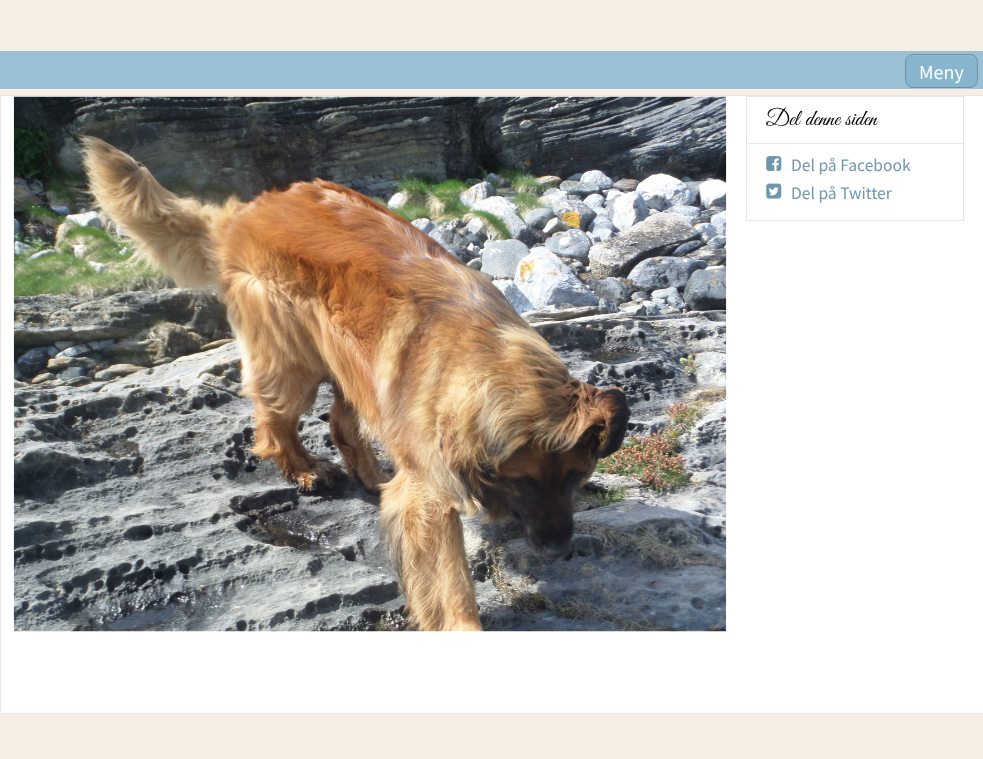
(async () => {
const canvas = document.querySelector("canvas")
canvas.width = 983
canvas.height = 759
const c = canvas.getContext("2d")
c.miterLimit = 4
c.fontKerning = "normal"
function T(s,x,y){c.fillText(s,x,y)}
function R(x,y,w,h){c.fillRect(x,y,w,h)}
function Q(x,y,w,h,r){c.beginPath();c.roundRect(x,y,w,h,r);c.fill()}
async function I(src,x,y,w,h){const img=new Image();img.src=src;await img.decode();c.drawImage(img,x,y,w,h)}
let path
c.fillStyle="#f6ede4"
R(0,0,983,759)
c.fillStyle="#9ac0d5"
R(0,51,983,38)
c.save()
c.beginPath()
c.rect(0,51,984,38)
c.clip()
c.fillStyle="#a2c5d8"
path = new Path2D("M905 80c0 11 10 9 17 9h38c15 0 18 1 18-14c0-4 1-11-1-15l1 20c0 4-4 8-8 8h-58c-4 0-7-4-7-8z")
c.fill(path)
c.restore()
c.fillStyle="#88b5ce"
Q(905,54,73,34,8)
c.fillStyle="#94bcd3"
path = new Path2D("M912 56h58c3 0 6 3 6 6c0-9-9-7-16-7h-38c-7 0-16-2-16 7c0-3 3-6 6-6z")
c.fill(path)
c.beginPath()
c.roundRect(905.5,54.5,72,33,7.5)
c.strokeStyle="#00000033"
c.stroke()
c.font="20px Source Sans Pro"
c.fillStyle="#fff"
T("Meny",919,79)
c.beginPath()
c.rect(.5,95.5,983,618)
c.fill()
c.strokeStyle="#e6e6e6"
c.stroke()
await I("1.png",13,96,714,536)
c.strokeRect(746.5,96.5,217,124)
c.fillStyle="#e6e6e6"
R(748,143,215,1)
c.font="22.5px Great Vibes"
c.fillStyle="#000"
T("Del denne siden",766,125)
await I("2.png",766,156,16,16)
c.font="17.5px Source Sans Pro"
c.fillStyle="#6e97ae"
T("Del på Facebook",791,171)
await I("3.png",766,183,16,16)
T("Del på Twitter",791,199)
})()
